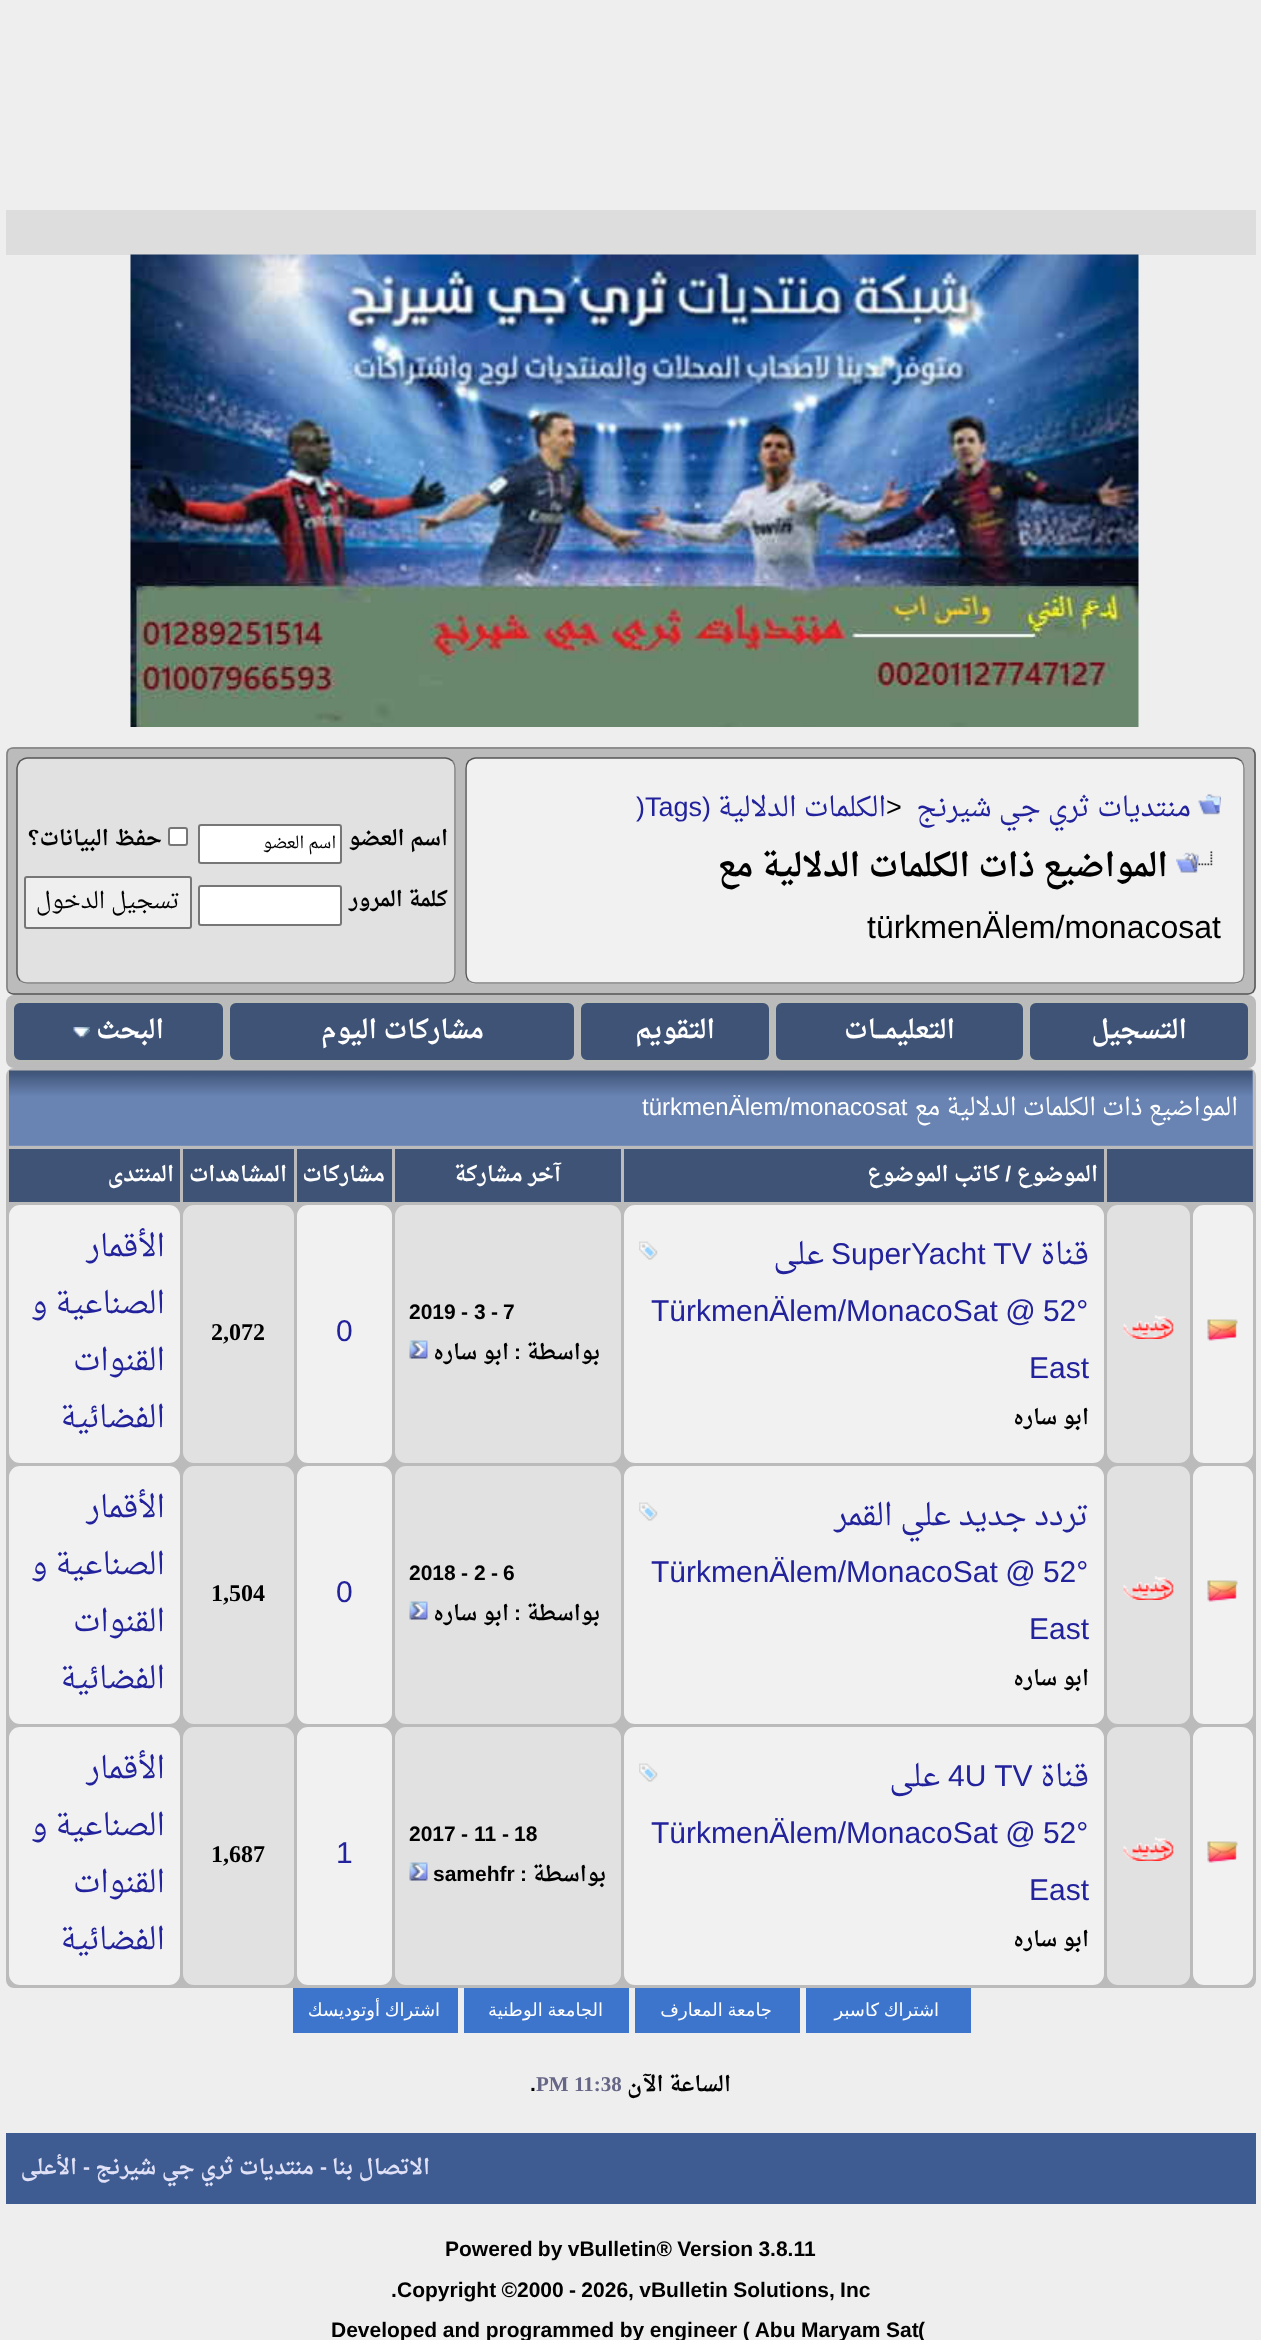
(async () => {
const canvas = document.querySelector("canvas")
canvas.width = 1261
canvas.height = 2340
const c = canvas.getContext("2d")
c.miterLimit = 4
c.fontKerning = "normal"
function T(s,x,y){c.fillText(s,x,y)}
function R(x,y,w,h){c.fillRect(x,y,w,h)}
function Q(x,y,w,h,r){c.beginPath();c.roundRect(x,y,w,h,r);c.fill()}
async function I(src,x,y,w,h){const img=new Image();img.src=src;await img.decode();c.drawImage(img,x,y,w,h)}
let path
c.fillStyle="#eee"
R(0,0,1261,2340)
c.fillStyle="#ddd"
R(6,210,1250,45)
await I("1.png",130,254,1009,473)
c.fillStyle="#bbb"
Q(6,747,1250,248,8)
path = new Path2D("M1253 749.5c1 1.5 2 3 2 5v232.5c0 2-1 3.5-2 5c-1.5 1-3 2-5 2h-1234.5c-2 0-3.5-1-5-2")
c.strokeStyle="#555"
c.lineWidth=1.5
c.stroke(path)
path = new Path2D("M8.5 992c-1-1.5-1.5-3-1.5-5v-232.5c0-2 .5-3.5 1.5-5c1.5-1 3-1.5 5-1.5h1234.5c2 0 3.5 .5 5 1.5")
c.strokeStyle="#808080"
c.stroke(path)
c.fillStyle="#f1f1f1"
Q(465,758,780,226,11)
path = new Path2D("M1241.5 761c1.5 2 2.5 4.5 2.5 7v205.5c0 2.5-1 5-2.5 7c-2 1.5-4.5 2.5-7 2.5h-759c-2.5 0-5-1-7-2.5")
c.stroke(path)
path = new Path2D("M468.5 980.5c-1.5-2-2.5-4.5-2.5-7v-205.5c0-2.5 1-5 2.5-7c2-1.5 4.5-3 7-3h759c2.5 0 5 1.5 7 3")
c.strokeStyle="#555"
c.stroke(path)
await I("2.png",1198,794,23,21)
c.direction="rtl"
c.font="27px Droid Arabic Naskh"
c.fillStyle="#22229c"
T("منتديات ثري جي شيرنج",1191,816)
c.direction="ltr"
c.font="27px Liberation Sans"
c.fillStyle="#000"
T(">",886,816)
c.direction="rtl"
c.font="27px Droid Arabic Naskh"
c.fillStyle="#22229c"
T("الكلمات الدلالية",886,816)
c.font="27px Liberation Sans"
T("(",711,816)
c.direction="ltr"
T(")Tags",636,816)
await I("3.png",1176,851,37,22)
c.direction="rtl"
c.font="bold 32px Droid Arabic Naskh"
c.fillStyle="#000"
T("المواضيع ذات الكلمات الدلالية مع",1168,876)
c.direction="ltr"
c.font="32px Liberation Sans"
T("türkmenÄlem/monacosat",867,938)
c.fillStyle="#e1e1e2"
Q(17,758,439,226,11)
path = new Path2D("M452.5 761c1.5 2 2.5 4.5 2.5 7v205.5c0 2.5-1 5-2.5 7c-2 1.5-4.5 2.5-7 2.5h-418.5c-2.5 0-5-1-7-2.5")
c.strokeStyle="#808080"
c.stroke(path)
path = new Path2D("M20 980.5c-1.5-2-3-4.5-3-7v-205.5c0-2.5 1.5-5 3-7c2-1.5 4.5-3 7-3h418.5c2.5 0 5 1.5 7 3")
c.strokeStyle="#555"
c.stroke(path)
c.direction="rtl"
c.font="bold 21px Droid Arabic Naskh"
c.fillStyle="#000"
T("اسم العضو",448,845)
c.fillStyle="#fff"
c.beginPath()
c.roundRect(199,825,142,38,2)
c.fill()
c.strokeStyle="#767676"
c.lineWidth=2
c.stroke()
c.font="16.5px Droid Arabic Naskh"
c.fillStyle="#000"
T("اسم العضو",336,848)
c.fillStyle="#fff"
c.beginPath()
c.roundRect(169,828,18,17,2)
c.fill()
c.stroke()
c.font="bold 21px Droid Arabic Naskh"
c.fillStyle="#000"
T("حفظ البيانات؟",162,845)
T("كلمة المرور",448,906)
c.fillStyle="#fff"
c.beginPath()
c.roundRect(199,886,142,39,2)
c.fill()
c.stroke()
c.fillStyle="#efefef"
c.beginPath()
c.roundRect(25,877,166,51,2)
c.fill()
c.stroke()
c.font="22.5px Droid Arabic Naskh"
c.fillStyle="#000"
T("تسجيل الدخول",180,908)
c.fillStyle="#bbb"
Q(6,995,1250,73,8)
c.fillStyle="#3f5376"
c.beginPath()
c.roundRect(1029,1002,220,59,7)
c.fill()
c.strokeStyle="#bbbdb9"
c.stroke()
c.font="bold 25.5px Droid Arabic Naskh"
c.fillStyle="#fff"
T("التسجيل",1187,1038)
c.fillStyle="#3f5376"
c.beginPath()
c.roundRect(775,1002,249,59,7)
c.fill()
c.stroke()
c.fillStyle="#fff"
T("التعليمـــات",955,1038)
c.fillStyle="#3f5376"
c.beginPath()
c.roundRect(580,1002,190,59,7)
c.fill()
c.stroke()
c.fillStyle="#fff"
T("التقويم",715,1038)
c.fillStyle="#3f5376"
c.beginPath()
c.roundRect(229,1002,346,59,7)
c.fill()
c.stroke()
c.fillStyle="#fff"
T("مشاركات اليوم",484,1038)
c.fillStyle="#3f5376"
c.beginPath()
c.roundRect(13,1002,211,59,7)
c.fill()
c.stroke()
c.fillStyle="#fff"
T("البحث",164,1038)
await I("4.png",73,1027,17,11)
c.fillStyle="#bbb"
Q(6,1068,1250,920,8)
c.fillStyle="#869bbf"
R(9,1071,1244,75)
await I("5.png",9,1070,1244,76)
c.font="24px Droid Arabic Naskh"
c.fillStyle="#fff"
T("المواضيع ذات الكلمات الدلالية مع",1238,1115)
c.direction="ltr"
c.font="24px Liberation Sans"
T("türkmenÄlem/monacosat",642,1115)
c.fillStyle="#3f5376"
R(1107,1149,146,53)
R(624,1149,480,53)
c.direction="rtl"
c.font="bold 21px Droid Arabic Naskh"
c.fillStyle="#fff"
T("الموضوع",1098,1181)
c.font="bold 21px Liberation Sans"
T("/",1011,1181)
c.font="bold 21px Droid Arabic Naskh"
T("كاتب الموضوع",1000,1181)
c.fillStyle="#3f5376"
R(395,1149,226,53)
c.fillStyle="#fff"
T("آخر مشاركة",561,1181)
c.fillStyle="#3f5376"
R(297,1149,95,53)
c.fillStyle="#fff"
T("مشاركات",385,1181)
c.fillStyle="#3f5376"
R(183,1149,111,53)
c.fillStyle="#fff"
T("المشاهدات",287,1181)
c.fillStyle="#3f5376"
R(9,1149,171,53)
c.fillStyle="#fff"
T("المنتدى",174,1181)
c.fillStyle="#f1f1f1"
Q(1193,1205,60,258,11)
await I("6.png",1207,1319,31,22)
c.fillStyle="#e1e1e2"
Q(1107,1205,83,258,11)
await I("7.png",1123,1315,51,24)
c.fillStyle="#f1f1f1"
Q(624,1205,480,258,11)
c.font="30px Droid Arabic Naskh"
c.fillStyle="#22229c"
T("قناة",1089,1264)
c.direction="ltr"
c.font="30px Liberation Sans"
T("SuperYacht TV",831,1264)
c.direction="rtl"
c.font="30px Droid Arabic Naskh"
T("على",824,1264)
await I("8.png",639,1241,19,19)
c.wordSpacing="-1px"
c.direction="ltr"
c.font="30px Liberation Sans"
T("TürkmenÄlem/MonacoSat @ 52°",651,1321)
c.wordSpacing="0px"
T("East",1029,1378)
c.direction="rtl"
c.font="bold 21px Droid Arabic Naskh"
c.fillStyle="#000"
T("ابو ساره",1089,1424)
c.fillStyle="#e1e1e2"
Q(395,1205,226,258,11)
c.direction="ltr"
c.font="bold 21px Liberation Sans"
c.fillStyle="#000"
T("7",503,1319)
T("-",491,1319)
T("3",474,1319)
T("-",461,1319)
T("2019",409,1319)
c.direction="rtl"
c.font="bold 21px Droid Arabic Naskh"
T("بواسطة",600,1359)
c.font="bold 21px Liberation Sans"
T(":",521,1359)
c.font="bold 21px Droid Arabic Naskh"
T("ابو ساره",509,1359)
await I("9.png",409,1340,19,19)
c.fillStyle="#f1f1f1"
Q(297,1205,95,258,11)
c.direction="ltr"
c.font="30px Liberation Sans"
c.fillStyle="#22229c"
T("0",336,1341)
c.fillStyle="#e1e1e2"
Q(183,1205,111,258,11)
c.font="bold 24px Liberation Serif"
c.fillStyle="#000"
T("2,072",211,1340)
c.fillStyle="#f1f1f1"
Q(9,1205,171,258,11)
c.direction="rtl"
c.font="30px Droid Arabic Naskh"
c.fillStyle="#22229c"
T("الأقمار",165,1256)
T("الصناعية و",165,1313)
T("القنوات",165,1370)
T("الفضائية",165,1427)
c.fillStyle="#f1f1f1"
Q(1193,1466,60,258,11)
await I("6.png",1207,1580,31,22)
c.fillStyle="#e1e1e2"
Q(1107,1466,83,258,11)
await I("7.png",1123,1576,51,24)
c.fillStyle="#f1f1f1"
Q(624,1466,480,258,11)
c.fillStyle="#22229c"
T("تردد جديد علي القمر",1089,1525)
await I("8.png",639,1502,19,19)
c.wordSpacing="-1px"
c.direction="ltr"
c.font="30px Liberation Sans"
T("TürkmenÄlem/MonacoSat @ 52°",651,1582)
c.wordSpacing="0px"
T("East",1029,1639)
c.direction="rtl"
c.font="bold 21px Droid Arabic Naskh"
c.fillStyle="#000"
T("ابو ساره",1089,1685)
c.fillStyle="#e1e1e2"
Q(395,1466,226,258,11)
c.direction="ltr"
c.font="bold 21px Liberation Sans"
c.fillStyle="#000"
T("6",503,1580)
T("-",491,1580)
T("2",474,1580)
T("-",461,1580)
T("2018",409,1580)
c.direction="rtl"
c.font="bold 21px Droid Arabic Naskh"
T("بواسطة",600,1620)
c.font="bold 21px Liberation Sans"
T(":",521,1620)
c.font="bold 21px Droid Arabic Naskh"
T("ابو ساره",509,1620)
await I("9.png",409,1601,19,19)
c.fillStyle="#f1f1f1"
Q(297,1466,95,258,11)
c.direction="ltr"
c.font="30px Liberation Sans"
c.fillStyle="#22229c"
T("0",336,1602)
c.fillStyle="#e1e1e2"
Q(183,1466,111,258,11)
c.font="bold 24px Liberation Serif"
c.fillStyle="#000"
T("1,504",211,1601)
c.fillStyle="#f1f1f1"
Q(9,1466,171,258,11)
c.direction="rtl"
c.font="30px Droid Arabic Naskh"
c.fillStyle="#22229c"
T("الأقمار",165,1517)
T("الصناعية و",165,1574)
T("القنوات",165,1631)
T("الفضائية",165,1688)
c.fillStyle="#f1f1f1"
Q(1193,1727,60,258,11)
await I("6.png",1207,1841,31,22)
c.fillStyle="#e1e1e2"
Q(1107,1727,83,258,11)
await I("7.png",1123,1837,51,24)
c.fillStyle="#f1f1f1"
Q(624,1727,480,258,11)
c.fillStyle="#22229c"
T("قناة",1089,1786)
c.direction="ltr"
c.font="30px Liberation Sans"
T("4U TV",948,1786)
c.direction="rtl"
c.font="30px Droid Arabic Naskh"
T("على",940,1786)
await I("8.png",639,1763,19,19)
c.wordSpacing="-1px"
c.direction="ltr"
c.font="30px Liberation Sans"
T("TürkmenÄlem/MonacoSat @ 52°",651,1843)
c.wordSpacing="0px"
T("East",1029,1900)
c.direction="rtl"
c.font="bold 21px Droid Arabic Naskh"
c.fillStyle="#000"
T("ابو ساره",1089,1946)
c.fillStyle="#e1e1e2"
Q(395,1727,226,258,11)
c.direction="ltr"
c.font="bold 21px Liberation Sans"
c.fillStyle="#000"
T("18",514,1841)
T("-",502,1841)
T("11",474,1841)
T("-",461,1841)
T("2017",409,1841)
c.direction="rtl"
c.font="bold 21px Droid Arabic Naskh"
T("بواسطة",606,1881)
c.font="bold 21px Liberation Sans"
T(":",527,1881)
c.direction="ltr"
T("samehfr",433,1881)
await I("9.png",409,1862,19,19)
c.fillStyle="#f1f1f1"
Q(297,1727,95,258,11)
c.font="30px Liberation Sans"
c.fillStyle="#22229c"
T("1",336,1863)
c.fillStyle="#e1e1e2"
Q(183,1727,111,258,11)
c.font="bold 24px Liberation Serif"
c.fillStyle="#000"
T("1,687",211,1862)
c.fillStyle="#f1f1f1"
Q(9,1727,171,258,11)
c.direction="rtl"
c.font="30px Droid Arabic Naskh"
c.fillStyle="#22229c"
T("الأقمار",165,1778)
T("الصناعية و",165,1835)
T("القنوات",165,1892)
T("الفضائية",165,1949)
c.fillStyle="#3d74cc"
R(806,1988,165,45)
c.wordSpacing="-1px"
c.font="18px DejaVu Sans"
c.fillStyle="#fff"
T("اشتراك كاسبر",939,2016)
c.fillStyle="#3d74cc"
R(635,1988,165,45)
c.fillStyle="#fff"
T("جامعة المعارف",772,2016)
c.fillStyle="#3d74cc"
R(464,1988,165,45)
c.fillStyle="#fff"
T("الجامعة الوطنية",603,2016)
c.fillStyle="#3d74cc"
R(293,1988,165,45)
c.fillStyle="#fff"
T("اشتراك أوتوديسك",440,2016)
c.wordSpacing="0px"
c.font="bold 21px Droid Arabic Naskh"
c.fillStyle="#000"
T("الساعة الآن",731,2091)
c.direction="ltr"
c.font="bold 21px Liberation Serif"
c.fillStyle="#666686"
T("PM 11:38",536,2091)
c.font="bold 21px Liberation Sans"
c.fillStyle="#000"
T(".",530,2091)
c.fillStyle="#3e5c92"
R(6,2133,1250,71)
c.direction="rtl"
c.font="bold 21px Droid Arabic Naskh"
c.fillStyle="#e0e0f6"
T("الاتصال بنا",430,2174)
c.direction="ltr"
c.font="bold 21px Liberation Sans"
T("-",320,2174)
c.direction="rtl"
c.font="bold 21px Droid Arabic Naskh"
T("منتديات ثري جي شيرنج",314,2174)
c.direction="ltr"
c.font="bold 21px Liberation Sans"
T("-",83,2174)
c.direction="rtl"
c.font="bold 21px Droid Arabic Naskh"
T("الأعلى",77,2174)
c.wordSpacing="-0.5px"
c.direction="ltr"
c.font="bold 21px Liberation Sans"
c.fillStyle="#000"
T("Powered by vBulletin® Version 3.8.11",445,2256)
T("Copyright ©2000 - 2026, vBulletin Solutions, Inc",397,2297)
c.wordSpacing="0px"
T(".",391,2297)
T("(",918,2337)
c.wordSpacing="-0.25px"
T("Developed and programmed by engineer ( Abu Maryam Sat",331,2337)
})()
